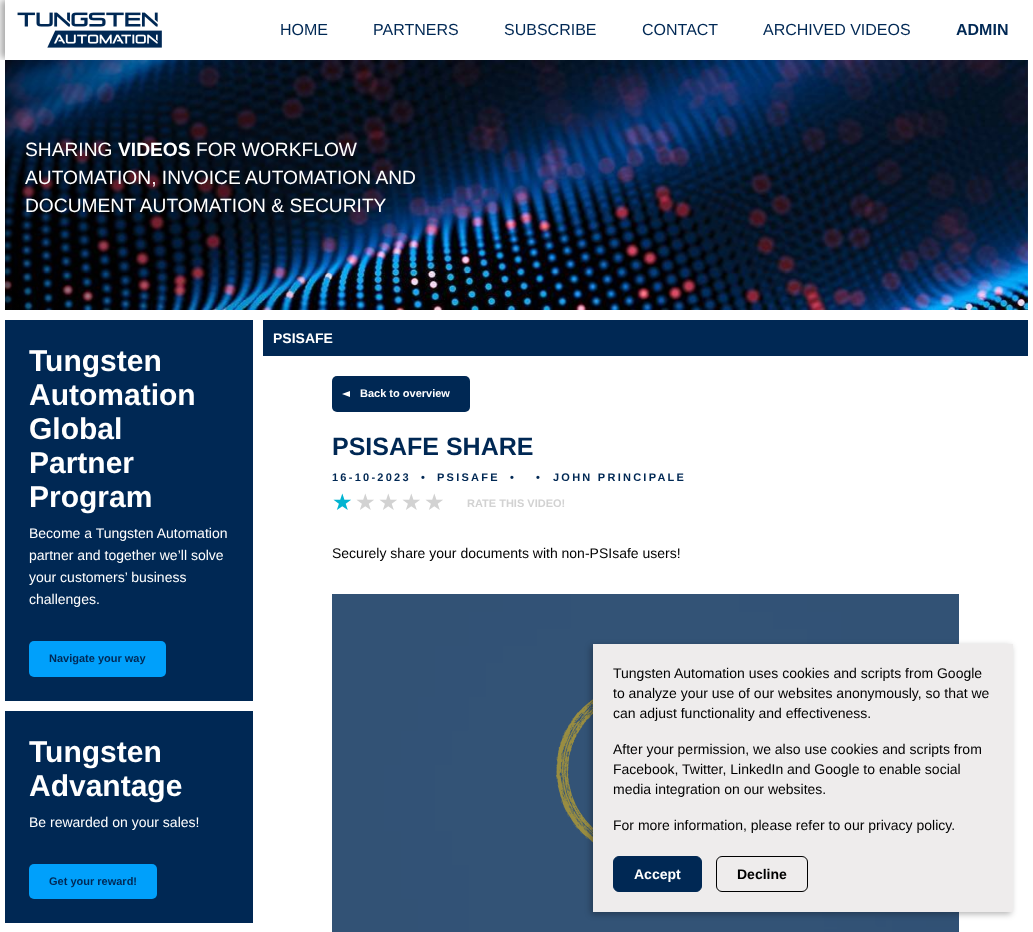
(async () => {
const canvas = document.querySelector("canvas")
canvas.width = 1033
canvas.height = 932
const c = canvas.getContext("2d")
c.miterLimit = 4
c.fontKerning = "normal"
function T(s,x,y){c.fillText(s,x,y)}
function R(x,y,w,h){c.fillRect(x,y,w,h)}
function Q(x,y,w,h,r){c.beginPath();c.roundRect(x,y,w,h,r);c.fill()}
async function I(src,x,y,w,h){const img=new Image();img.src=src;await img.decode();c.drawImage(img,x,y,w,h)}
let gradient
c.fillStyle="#fff"
R(0,0,1033,932)
c.save()
c.beginPath()
c.rect(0,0,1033,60)
c.clip()
c.beginPath()
c.rect(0,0,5,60)
c.clip()
c.fillStyle="#00000059"
c.filter="blur(3.5px)"
c.beginPath()
c.rect(1,0,1021,58)
c.fill()
c.filter="none"
c.restore()
await I("1.png",17,12,145,36)
c.font="16px Liberation Sans"
c.fillStyle="#002854"
T("HOME",280,35)
T("PARTNERS",373,35)
T("SUBSCRIBE",504,35)
T("CONTACT",642,35)
T("ARCHIVED VIDEOS",763,35)
c.font="bold 16px Liberation Sans"
T("ADMIN",956,35)
await I("2.png",5,60,1023,250)
await I("3.png",1027,60,1,250)
gradient = c.createLinearGradient(5,185,1028,185)
gradient.addColorStop(0,"#000000a6")
gradient.addColorStop(.02,"#00000073")
gradient.addColorStop(.33,"#00000000")
gradient.addColorStop(1,"#00000000")
c.fillStyle = gradient
R(5,60,322,250)
c.font="19.2px Liberation Sans"
c.fillStyle="#fff"
T("SHARING",25,156)
c.font="bold 19.2px Liberation Sans"
T("VIDEOS",118,156)
c.font="19.2px Liberation Sans"
T("FOR WORKFLOW",196,156)
T("AUTOMATION, INVOICE AUTOMATION AND",25,184)
T("DOCUMENT AUTOMATION & SECURITY",25,212)
c.fillStyle="#002854"
R(5,320,248,381)
c.font="bold 30px Liberation Sans"
c.fillStyle="#fff"
T("Tungsten",29,371)
T("Automation",29,405)
T("Global",29,439)
T("Partner",29,473)
T("Program",29,507)
c.font="14px Liberation Sans"
T("Become a Tungsten Automation",29,538)
T("partner and together we’ll solve",29,560)
T("your customers’ business",29,582)
T("challenges.",29,604)
c.fillStyle="#00a0fb"
Q(29,641,137,36,5)
c.font="bold 11px Liberation Sans"
c.fillStyle="#002854"
T("Navigate your way",49,662)
R(5,711,248,212)
c.font="bold 30px Liberation Sans"
c.fillStyle="#fff"
T("Tungsten",29,762)
T("Advantage",29,796)
c.font="14px Liberation Sans"
T("Be rewarded on your sales!",29,827)
c.fillStyle="#00a0fb"
Q(29,864,128,35,5)
c.font="bold 11px Liberation Sans"
c.fillStyle="#002854"
T("Get your reward!",49,885)
R(263,320,765,36)
c.font="bold 14px Liberation Sans"
c.fillStyle="#fff"
T("PSISAFE",273,343)
c.fillStyle="#002854"
Q(332,376,138,36,5)
await I("4.png",342,391,8,6)
c.font="bold 11px Liberation Sans"
c.fillStyle="#fff"
T("Back to overview",360,397)
c.font="bold 25px Liberation Sans"
c.fillStyle="#002854"
T("PSISAFE SHARE",332,455)
c.letterSpacing="2.25px"
c.font="bold 11px Liberation Sans"
T("16-10-2023",332,481)
T("•",421,481)
T("PSISAFE",437,481)
T("•",510,481)
T("•",536,481)
T("JOHN PRINCIPALE",553,481)
c.letterSpacing="0px"
c.font="23px DejaVu Sans"
c.fillStyle="#01b4d1"
T("★",332,510)
c.fillStyle="#d2d2d2"
T("★",355,510)
T("★",378,510)
T("★",401,510)
T("★",424,510)
c.font="bold 11px Liberation Sans"
T("RATE THIS VIDEO!",467,507)
c.font="14px Liberation Sans"
c.fillStyle="#000"
T("Securely share your documents with non-PSIsafe users!",332,558)
await I("5.png",332,594,627,338)
await I("6.png",556,699,37,144)
c.fillStyle="#0000004d"
c.filter="blur(3px)"
c.beginPath()
c.rect(591,646,420,268)
c.fill()
c.filter="none"
c.fillStyle="#eeecec"
R(593,644,420,268)
c.fillStyle="#000"
T("Tungsten Automation uses cookies and scripts from Google",613,678)
T("to analyze your use of our websites anonymously, so that we",613,698)
T("can adjust functionality and effectiveness.",613,718)
T("After your permission, we also use cookies and scripts from",613,754)
T("Facebook, Twitter, LinkedIn and Google to enable social",613,774)
T("media integration on our websites.",613,794)
T("For more information, please refer to our privacy policy.",613,830)
c.fillStyle="#002854"
c.beginPath()
c.roundRect(613.5,856.5,88,35,5.5)
c.fill()
c.strokeStyle="#002854"
c.stroke()
c.font="bold 14px Liberation Sans"
c.fillStyle="#fff"
T("Accept",634,879)
c.beginPath()
c.roundRect(716.5,856.5,91,35,5.5)
c.strokeStyle="#000"
c.stroke()
c.fillStyle="#000"
T("Decline",737,879)
})()
